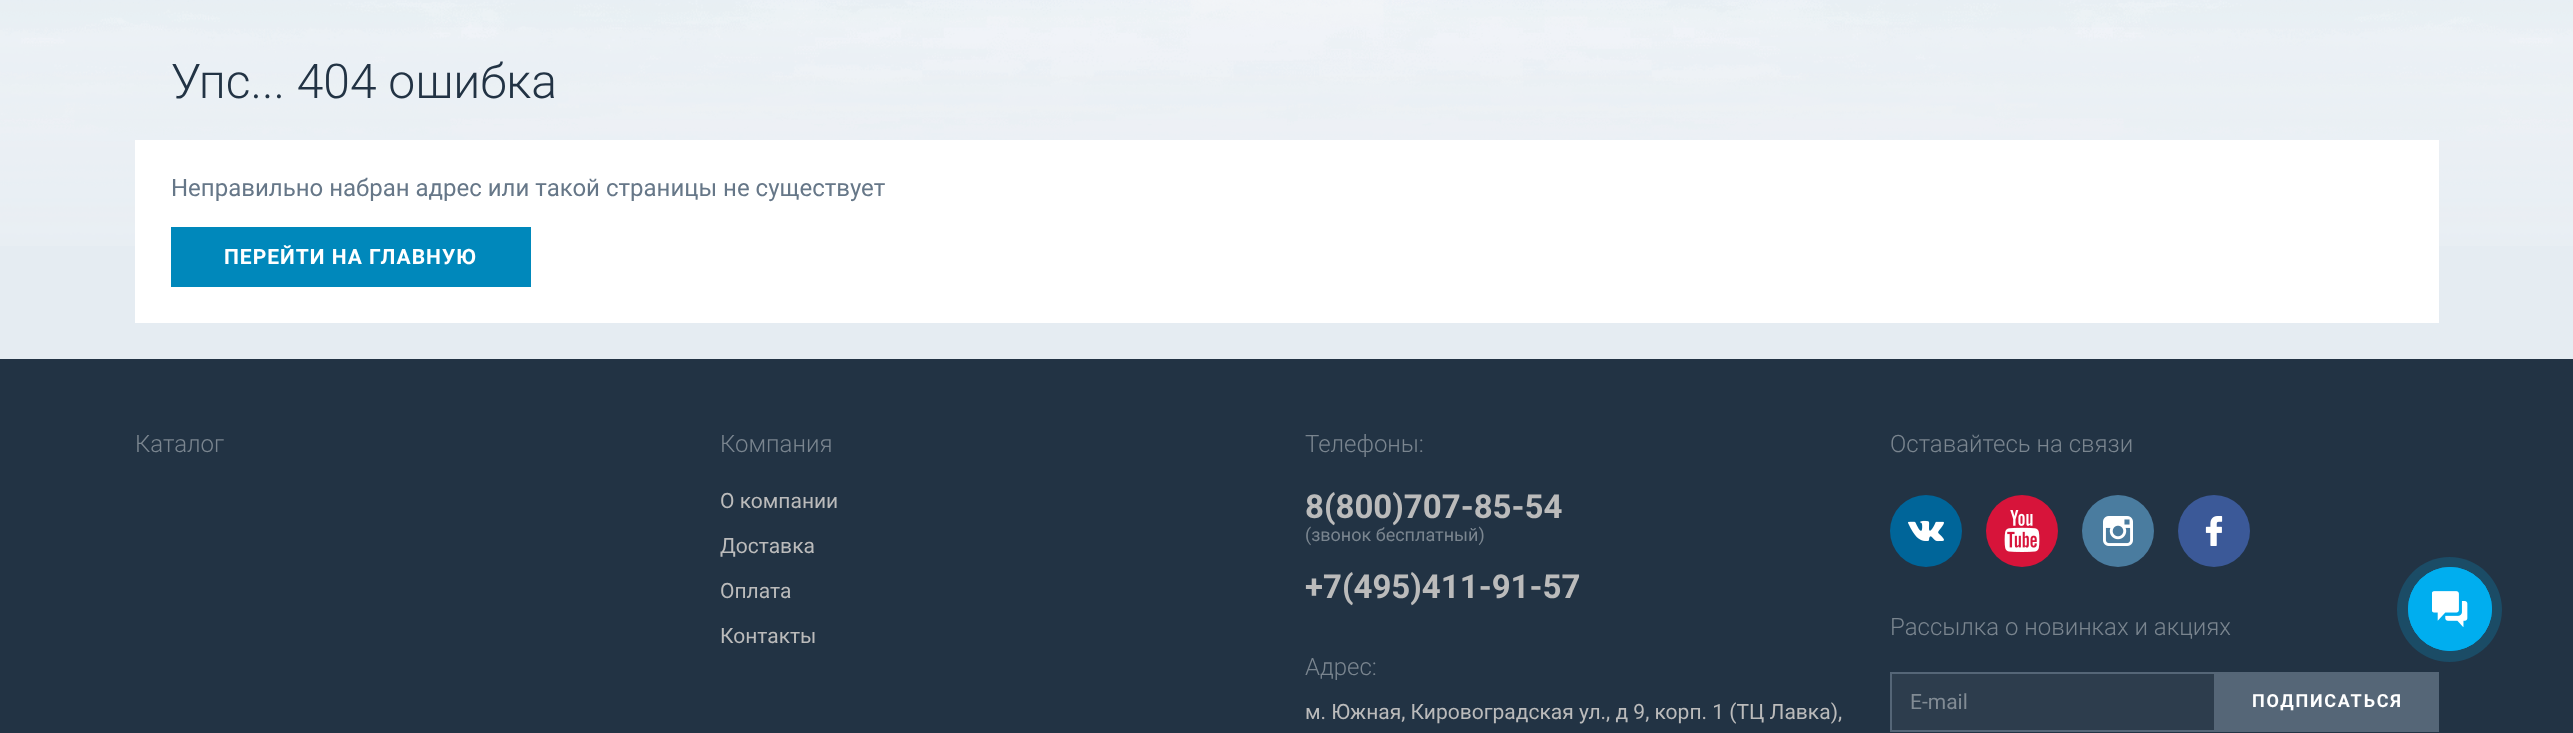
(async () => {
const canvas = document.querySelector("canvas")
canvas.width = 2573
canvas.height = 733
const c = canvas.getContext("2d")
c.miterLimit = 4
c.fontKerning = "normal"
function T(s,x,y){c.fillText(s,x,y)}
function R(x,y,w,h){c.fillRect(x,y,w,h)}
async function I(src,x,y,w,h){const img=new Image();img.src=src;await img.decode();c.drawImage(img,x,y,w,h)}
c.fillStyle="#e5ecf2"
R(0,0,2573,733)
await I("1.png",0,0,2573,246)
c.font="300 48px Roboto"
c.fillStyle="#234"
T("Упс... 404 ошибка",171,98)
c.fillStyle="#fff"
R(135,140,2304,183)
c.font="24px Roboto"
c.fillStyle="#678"
T("Неправильно набран адрес или такой страницы не существует",171,196)
c.fillStyle="#08b"
R(171,227,360,60)
c.letterSpacing="1px"
c.font="bold 21px Roboto"
c.fillStyle="#fff"
T("ПЕРЕЙТИ НА ГЛАВНУЮ",224,264)
c.fillStyle="#234"
R(0,359,2573,374)
c.letterSpacing="0px"
c.font="300 24px Roboto"
c.fillStyle="#7a858f"
T("Каталог",135,452)
T("Компания",720,452)
c.font="21px Roboto"
c.fillStyle="#bbb"
T("О компании",720,508)
T("Доставка",720,553)
T("Оплата",720,598)
T("Контакты",720,643)
c.font="300 24px Roboto"
c.fillStyle="#7a858f"
T("Телефоны:",1305,452)
c.font="bold 33px Roboto"
c.fillStyle="#bbb"
T("8(800)707-85-54",1305,518)
c.font="18px Roboto"
c.fillStyle="#7a858f"
T("(звонок бесплатный)",1305,541)
c.font="bold 33px Roboto"
c.fillStyle="#bbb"
T("+7(495)411-91-57",1305,598)
c.font="300 24px Roboto"
c.fillStyle="#7a858f"
T("Адрес:",1305,675)
c.font="21px Roboto"
c.fillStyle="#bbb"
T("м. Южная, Кировоградская ул., д 9, корп. 1 (ТЦ Лавка),",1305,719)
c.font="300 24px Roboto"
c.fillStyle="#7a858f"
T("Оставайтесь на связи",1890,452)
c.fillStyle="#006599"
c.beginPath()
c.arc(1926,531,36,0,7)
c.fill()
await I("2.png",1908,520,36,22)
c.fillStyle="#d7143a"
c.beginPath()
c.arc(2022,531,36,0,7)
c.fill()
await I("3.png",2004,510,36,42)
c.fillStyle="#4a7c9f"
c.beginPath()
c.arc(2118,531,36,0,7)
c.fill()
await I("4.png",2103,516,30,30)
c.fillStyle="#3b5998"
c.beginPath()
c.arc(2214,531,36,0,7)
c.fill()
await I("5.png",2205,516,18,30)
c.fillStyle="#7a858f"
T("Рассылка о новинках и акциях",1890,635)
c.fillStyle="#2d3d4d"
c.beginPath()
c.rect(1891,673,324,58)
c.fill()
c.strokeStyle="#567"
c.lineWidth=2
c.stroke()
c.font="21px Roboto"
c.fillStyle="#818b94"
T("E-mail",1910,709)
c.fillStyle="#567"
R(2216,672,223,60)
c.letterSpacing="1.75px"
c.font="bold 18px Roboto"
c.fillStyle="#fff"
T("ПОДПИСАТЬСЯ",2252,707)
c.fillStyle="#1b4c66"
c.beginPath()
c.arc(2449.5,609.5,52.5,0,7)
c.fill()
c.beginPath()
c.arc(2450,609,41.5,0,7)
c.strokeStyle="#00aeef"
c.lineWidth=1
c.stroke()
c.fillStyle="#00aeef"
c.beginPath()
c.arc(2450,609,42,0,7)
c.fill()
await I("6.png",2432,591,36,36)
})()
